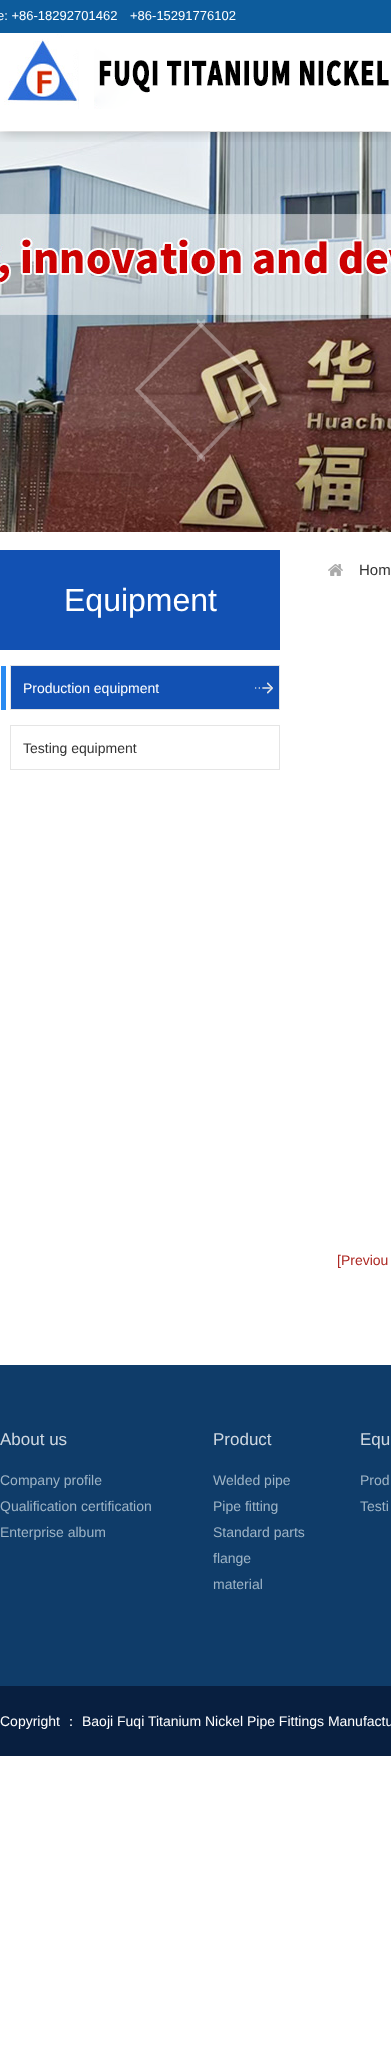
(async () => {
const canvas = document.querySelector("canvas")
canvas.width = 391
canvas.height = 2062
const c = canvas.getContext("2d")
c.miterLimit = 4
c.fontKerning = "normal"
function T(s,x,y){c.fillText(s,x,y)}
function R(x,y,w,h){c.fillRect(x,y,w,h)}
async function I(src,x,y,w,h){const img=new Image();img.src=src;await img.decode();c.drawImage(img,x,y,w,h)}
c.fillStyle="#fff"
R(0,0,391,2062)
await I("2.png",0,132,391,400)
c.save()
c.beginPath()
c.rect(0,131,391,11)
c.clip()
c.fillStyle="#0000004d"
c.filter="blur(7.5px)"
c.beginPath()
c.rect(0,0,391,131)
c.fill()
c.filter="none"
c.restore()
c.fillStyle="#0d5c9c"
R(0,0,391,33)
c.font="13px Liberation Sans"
c.fillStyle="#fff"
T("e: +86-18292701462",-3,20)
T("+86-15291776102",130,20)
await I("1.png",4,34,385,75)
await I("3.png",134,319,71,143)
await I("4.png",197,319,70,143)
c.fillStyle="#1251b3"
R(0,550,280,100)
c.font="32px Liberation Sans"
c.fillStyle="#fff"
T("Equipment",64,611)
c.fillStyle="#1251b3"
R(11,666,268,43)
await I("5.png",255,682,18,12)
c.strokeStyle="#e5e5e5"
c.strokeRect(10.5,665.5,269,44)
c.fillStyle="#298af1"
R(1,666,5,44)
c.font="14px Liberation Sans"
c.fillStyle="#fff"
T("Production equipment",23,693)
c.strokeRect(10.5,725.5,269,44)
c.fillStyle="#333"
T("Testing equipment",23,753)
await I("6.png",328,564,15,12)
c.font="15px Liberation Sans"
T("Hom",359,575)
c.font="14px Liberation Sans"
c.fillStyle="#ad2823"
T("[Previou",337,1265)
c.fillStyle="#0f3c69"
R(0,1365,391,321)
c.font="17px Liberation Sans"
c.fillStyle="#cfd8e1"
T("About us",0,1445)
c.font="14px Liberation Sans"
c.fillStyle="#9eb4c6"
T("Company profile",0,1485)
T("Qualification certification",0,1511)
T("Enterprise album",0,1537)
c.font="17px Liberation Sans"
c.fillStyle="#cfd8e1"
T("Product",213,1445)
c.font="14px Liberation Sans"
c.fillStyle="#9eb4c6"
T("Welded pipe",213,1485)
T("Pipe fitting",213,1511)
T("Standard parts",213,1537)
T("flange",213,1563)
T("material",213,1589)
c.font="17px Liberation Sans"
c.fillStyle="#cfd8e1"
T("Equ",360,1445)
c.font="14px Liberation Sans"
c.fillStyle="#9eb4c6"
T("Prod",360,1485)
T("Testi",360,1511)
c.fillStyle="#081f40"
R(0,1686,391,70)
c.fillStyle="#fff"
T("Copyright",0,1726)
c.font="500 14px WenQuanYi Zen Hei"
T("：",64,1726)
c.font="14px Liberation Sans"
T("Baoji Fuqi Titanium Nickel Pipe Fittings Manufactu",82,1726)
})()
